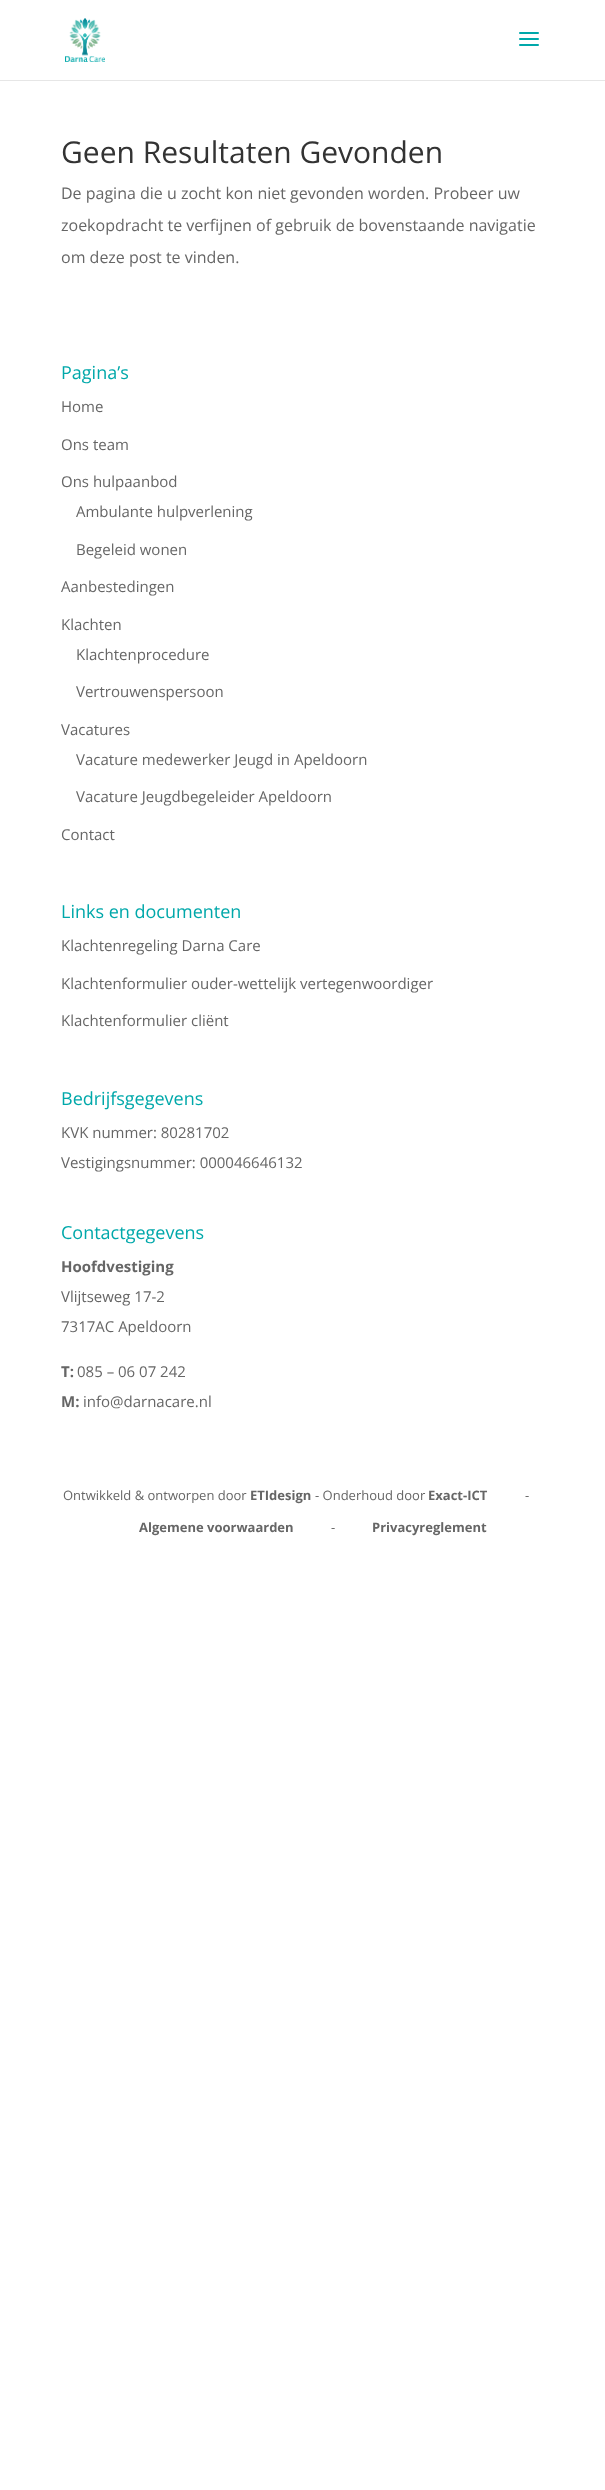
(async () => {
const canvas = document.querySelector("canvas")
canvas.width = 605
canvas.height = 2490
const c = canvas.getContext("2d")
c.miterLimit = 4
c.fontKerning = "normal"
function T(s,x,y){c.fillText(s,x,y)}
function R(x,y,w,h){c.fillRect(x,y,w,h)}
async function I(src,x,y,w,h){const img=new Image();img.src=src;await img.decode();c.drawImage(img,x,y,w,h)}
c.fillStyle="#fff"
R(0,0,605,2490)
c.fillStyle="#e6e6e6"
R(0,80,605,1)
await I("1.png",65,18,40,44)
await I("2.png",519,32,20,14)
c.font="30px Open Sans"
c.fillStyle="#333"
T("Geen Resultaten Gevonden",61,163)
c.font="16px Open Sans"
c.fillStyle="#666"
T("De pagina die u zocht kon niet gevonden worden. Probeer uw",61,199)
T("zoekopdracht te verfijnen of gebruik de bovenstaande navigatie",61,231)
T("om deze post te vinden.",61,263)
c.font="18px Open Sans"
c.fillStyle="#00a8aa"
T("Pagina’s",61,379)
c.font="15px Open Sans"
c.fillStyle="#666"
T("Home",61,412)
T("Ons team",61,450)
T("Ons hulpaanbod",61,487)
T("Ambulante hulpverlening",76,517)
T("Begeleid wonen",76,555)
T("Aanbestedingen",61,592)
T("Klachten",61,630)
T("Klachtenprocedure",76,660)
T("Vertrouwenspersoon",76,697)
T("Vacatures",61,735)
T("Vacature medewerker Jeugd in Apeldoorn",76,765)
T("Vacature Jeugdbegeleider Apeldoorn",76,802)
T("Contact",61,840)
c.font="18px Open Sans"
c.fillStyle="#00a8aa"
T("Links en documenten",61,918)
c.font="15px Open Sans"
c.fillStyle="#666"
T("Klachtenregeling Darna Care",61,951)
T("Klachtenformulier ouder-wettelijk vertegenwoordiger",61,989)
T("Klachtenformulier cliënt",61,1026)
c.font="18px Open Sans"
c.fillStyle="#00a8aa"
T("Bedrijfsgegevens",61,1105)
c.font="15px Open Sans"
c.fillStyle="#666"
T("KVK nummer: 80281702",61,1138)
T("Vestigingsnummer: 000046646132",61,1168)
c.font="18px Open Sans"
c.fillStyle="#00a8aa"
T("Contactgegevens",61,1239)
c.font="bold 15px Open Sans"
c.fillStyle="#666"
T("Hoofdvestiging",61,1272)
c.font="15px Open Sans"
T("Vlijtseweg 17-2",61,1302)
T("7317AC Apeldoorn",61,1332)
c.font="bold 15px Open Sans"
T("T:",61,1377)
c.font="15px Open Sans"
T("085 – 06 07 242",77,1377)
c.font="bold 15px Open Sans"
T("M:",61,1407)
c.font="15px Open Sans"
T("info@darnacare.nl",83,1407)
c.font="13px Open Sans"
T("Ontwikkeld & ontworpen door",63,1500)
c.font="bold 13px Open Sans"
T("ETIdesign",250,1500)
c.font="13px Open Sans"
T("- Onderhoud door",315,1500)
c.font="bold 13px Open Sans"
T("Exact-ICT",428,1500)
c.font="13px Open Sans"
T("-",525,1500)
c.font="bold 13px Open Sans"
T("Algemene voorwaarden",139,1532)
c.font="13px Open Sans"
T("-",331,1532)
c.font="bold 13px Open Sans"
T("Privacyreglement",372,1532)
})()
